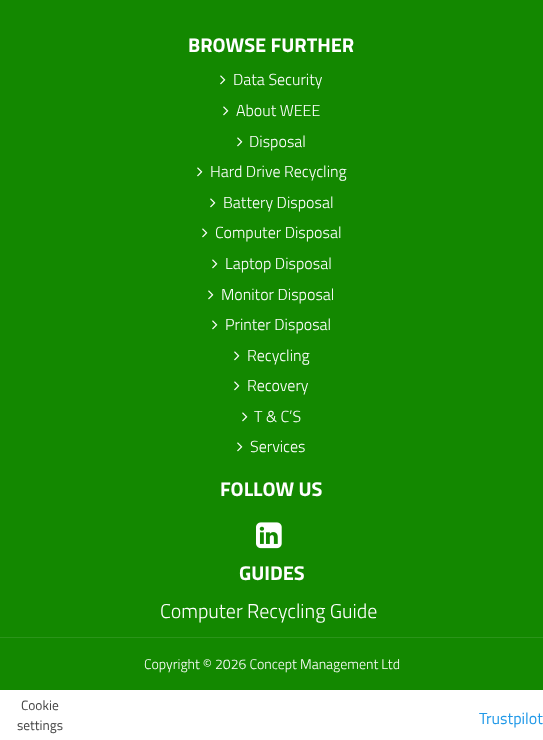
(async () => {
const canvas = document.querySelector("canvas")
canvas.width = 543
canvas.height = 740
const c = canvas.getContext("2d")
c.miterLimit = 4
c.fontKerning = "normal"
function T(s,x,y){c.fillText(s,x,y)}
function R(x,y,w,h){c.fillRect(x,y,w,h)}
async function I(src,x,y,w,h){const img=new Image();img.src=src;await img.decode();c.drawImage(img,x,y,w,h)}
c.fillStyle="#fff"
R(0,0,543,740)
c.fillStyle="#138800"
R(0,0,543,637)
c.font="bold 20px Titillium Web"
c.fillStyle="#fff"
T("BROWSE FURTHER",188,52)
await I("1.png",220,75,6,10)
c.font="300 16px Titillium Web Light"
T("Data Security",233,85)
await I("1.png",223,106,6,10)
T("About WEEE",236,116)
await I("1.png",237,137,6,10)
T("Disposal",249,147)
await I("1.png",197,167,6,10)
T("Hard Drive Recycling",210,177)
await I("1.png",210,198,6,10)
T("Battery Disposal",223,208)
await I("1.png",202,228,6,10)
T("Computer Disposal",215,238)
await I("1.png",212,259,6,10)
T("Laptop Disposal",225,269)
await I("1.png",208,290,6,10)
T("Monitor Disposal",221,300)
await I("1.png",212,320,6,10)
T("Printer Disposal",225,330)
await I("1.png",234,351,6,10)
T("Recycling",247,361)
await I("1.png",234,381,6,10)
T("Recovery",247,391)
await I("1.png",242,412,6,10)
T("T & C’S",254,422)
await I("1.png",237,442,6,10)
T("Services",250,452)
c.font="bold 20px Titillium Web"
T("FOLLOW US",220,496)
await I("2.png",256,522,26,27)
T("GUIDES",239,580)
c.font="300 20px Titillium Web Light"
T("Computer Recycling Guide",160,618)
c.fillStyle="#138800"
R(0,638,543,52)
c.fillStyle="#2b941a"
R(0,637,543,1)
c.font="300 14px Titillium Web Light"
c.fillStyle="#fff"
T("Copyright © 2026 Concept Management Ltd",144,669)
c.font="13.5px Titillium Web"
c.fillStyle="#444"
T("Cookie",21,710)
T("settings",17,730)
c.font="16px Titillium Web"
c.fillStyle="#2199e8"
T("Trustpilot",479,724)
})()
